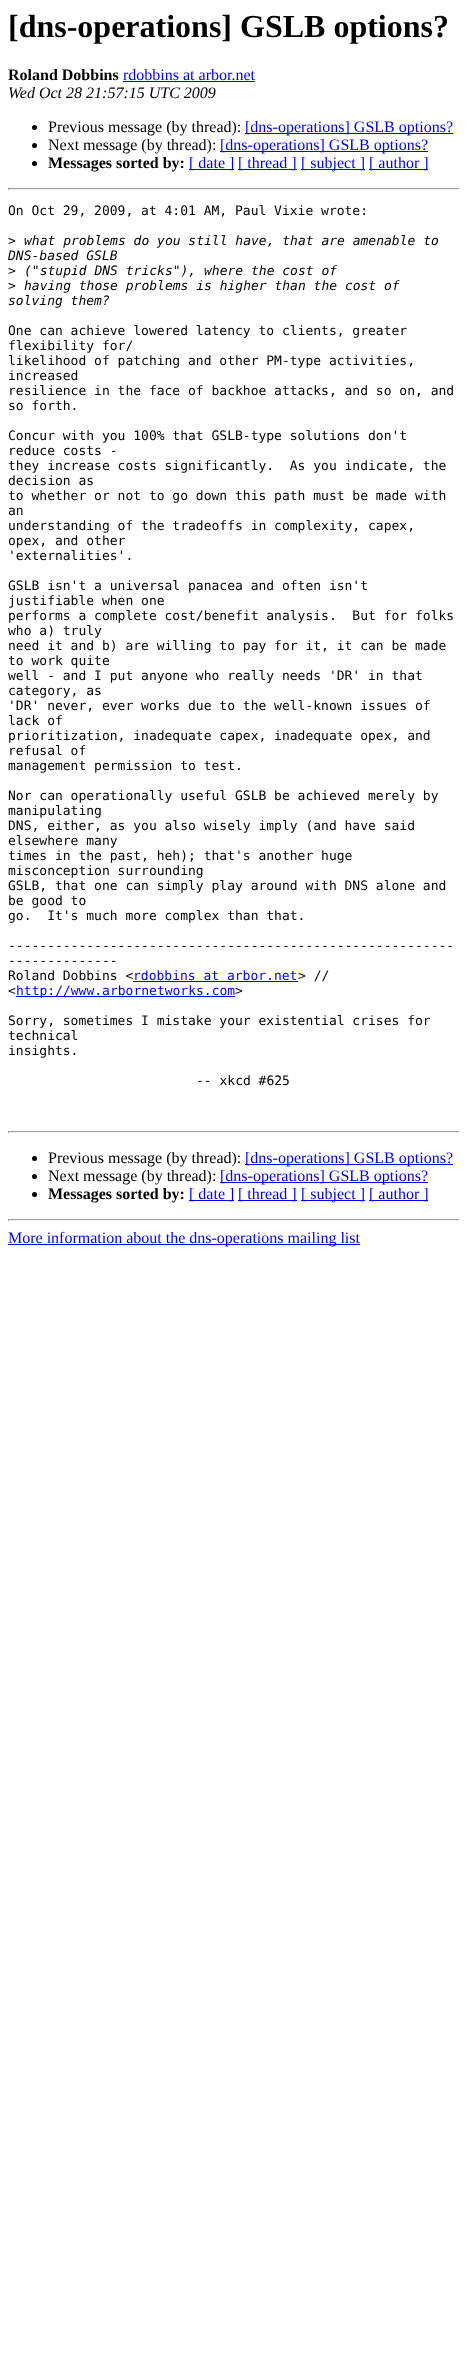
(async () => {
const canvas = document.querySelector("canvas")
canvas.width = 468
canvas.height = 2377
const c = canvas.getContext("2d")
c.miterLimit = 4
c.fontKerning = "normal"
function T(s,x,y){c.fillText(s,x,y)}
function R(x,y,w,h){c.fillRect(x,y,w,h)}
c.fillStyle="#fff"
R(0,0,468,2377)
c.font="bold 32px Liberation Serif"
c.fillStyle="#000"
T("[dns-operations] GSLB options?",8,37)
c.font="bold 16px Liberation Serif"
T("Roland Dobbins",8,80)
c.font="16px Liberation Serif"
c.fillStyle="#00e"
T("rdobbins at arbor.net",123,80)
R(123,81,132,1)
c.font="italic 16px Liberation Serif"
c.fillStyle="#000"
T("Wed Oct 28 21:57:15 UTC 2009",8,98)
c.beginPath()
c.arc(34.5,127.5,2.5,0,7)
c.fill()
c.font="16px Liberation Serif"
T("Previous message (by thread):",48,132)
c.fillStyle="#00e"
R(245,133,208,1)
T("[dns-operations] GSLB options?",245,132)
c.fillStyle="#000"
c.beginPath()
c.arc(34.5,145.5,2.5,0,7)
c.fill()
T("Next message (by thread):",48,150)
c.fillStyle="#00e"
R(220,151,208,1)
T("[dns-operations] GSLB options?",220,150)
c.fillStyle="#000"
c.beginPath()
c.arc(34.5,163.5,2.5,0,7)
c.fill()
c.font="bold 16px Liberation Serif"
T("Messages sorted by:",48,168)
c.fillStyle="#00e"
R(189,169,45,1)
c.font="16px Liberation Serif"
T("[ date ]",189,168)
R(238,169,59,1)
T("[ thread ]",238,168)
R(301,169,64,1)
T("[ subject ]",301,168)
R(369,169,59,1)
T("[ author ]",369,168)
c.fillStyle="#9f9f9f"
R(8,188,452,1)
c.fillStyle="#eee"
R(459,188,1,2)
R(8,189,452,1)
c.fillStyle="#9f9f9f"
R(8,188,1,2)
c.font="13px DejaVu Sans Mono"
c.fillStyle="#000"
T("On Oct 29, 2009, at 4:01 AM, Paul Vixie wrote:",8,215)
T(">",8,245)
c.font="italic 13px DejaVu Sans Mono"
T("what problems do you still have, that are amenable to",24,245)
T("DNS-based GSLB",8,260)
c.font="13px DejaVu Sans Mono"
T(">",8,275)
c.font="italic 13px DejaVu Sans Mono"
T("(\"stupid DNS tricks\"), where the cost of",24,275)
c.font="13px DejaVu Sans Mono"
T(">",8,290)
c.font="italic 13px DejaVu Sans Mono"
T("having those problems is higher than the cost of",24,290)
T("solving them?",8,305)
c.font="13px DejaVu Sans Mono"
T("One can achieve lowered latency to clients, greater",8,335)
T("flexibility for/",8,350)
T("likelihood of patching and other PM-type activities,",8,365)
T("increased",8,380)
T("resilience in the face of backhoe attacks, and so on, and",8,395)
T("so forth.",8,410)
T("Concur with you 100% that GSLB-type solutions don't",8,440)
T("reduce costs -",8,455)
T("they increase costs significantly.  As you indicate, the",8,470)
T("decision as",8,485)
T("to whether or not to go down this path must be made with",8,500)
T("an",8,515)
T("understanding of the tradeoffs in complexity, capex,",8,530)
T("opex, and other",8,545)
T("'externalities'.",8,560)
T("GSLB isn't a universal panacea and often isn't",8,590)
T("justifiable when one",8,605)
T("performs a complete cost/benefit analysis.  But for folks",8,620)
T("who a) truly",8,635)
T("need it and b) are willing to pay for it, it can be made",8,650)
T("to work quite",8,665)
T("well - and I put anyone who really needs 'DR' in that",8,680)
T("category, as",8,695)
T("'DR' never, ever works due to the well-known issues of",8,710)
T("lack of",8,725)
T("prioritization, inadequate capex, inadequate opex, and",8,740)
T("refusal of",8,755)
T("management permission to test.",8,770)
T("Nor can operationally useful GSLB be achieved merely by",8,800)
T("manipulating",8,815)
T("DNS, either, as you also wisely imply (and have said",8,830)
T("elsewhere many",8,845)
T("times in the past, heh); that's another huge",8,860)
T("misconception surrounding",8,875)
T("GSLB, that one can simply play around with DNS alone and",8,890)
T("be good to",8,905)
T("go.  It's much more complex than that.",8,920)
T("---------------------------------------------------------",8,950)
T("--------------",8,965)
T("Roland Dobbins <",8,980)
c.fillStyle="#00e"
T("rdobbins at arbor.net",133,980)
R(133,981,165,1)
c.fillStyle="#000"
T("> //",298,980)
T("<",8,995)
c.fillStyle="#00e"
R(16,996,219,1)
T("http://www.arbornetworks.com",16,995)
c.fillStyle="#000"
T(">",235,995)
T("Sorry, sometimes I mistake your existential crises for",8,1025)
T("technical",8,1040)
T("insights.",8,1055)
T("-- xkcd #625",196,1085)
c.fillStyle="#9f9f9f"
R(8,1131,452,1)
c.fillStyle="#eee"
R(459,1131,1,2)
R(8,1132,452,1)
c.fillStyle="#9f9f9f"
R(8,1131,1,2)
c.fillStyle="#000"
c.beginPath()
c.arc(34.5,1158.5,2.5,0,7)
c.fill()
c.font="16px Liberation Serif"
T("Previous message (by thread):",48,1163)
c.fillStyle="#00e"
R(245,1164,208,1)
T("[dns-operations] GSLB options?",245,1163)
c.fillStyle="#000"
c.beginPath()
c.arc(34.5,1176.5,2.5,0,7)
c.fill()
T("Next message (by thread):",48,1181)
c.fillStyle="#00e"
R(220,1182,208,1)
T("[dns-operations] GSLB options?",220,1181)
c.fillStyle="#000"
c.beginPath()
c.arc(34.5,1194.5,2.5,0,7)
c.fill()
c.font="bold 16px Liberation Serif"
T("Messages sorted by:",48,1199)
c.fillStyle="#00e"
R(189,1200,45,1)
c.font="16px Liberation Serif"
T("[ date ]",189,1199)
R(238,1200,59,1)
T("[ thread ]",238,1199)
R(301,1200,64,1)
T("[ subject ]",301,1199)
R(369,1200,59,1)
T("[ author ]",369,1199)
c.fillStyle="#9f9f9f"
R(8,1219,452,1)
c.fillStyle="#eee"
R(459,1219,1,2)
R(8,1220,452,1)
c.fillStyle="#9f9f9f"
R(8,1219,1,2)
c.fillStyle="#00e"
R(8,1244,352,1)
T("More information about the dns-operations mailing list",8,1243)
})()
